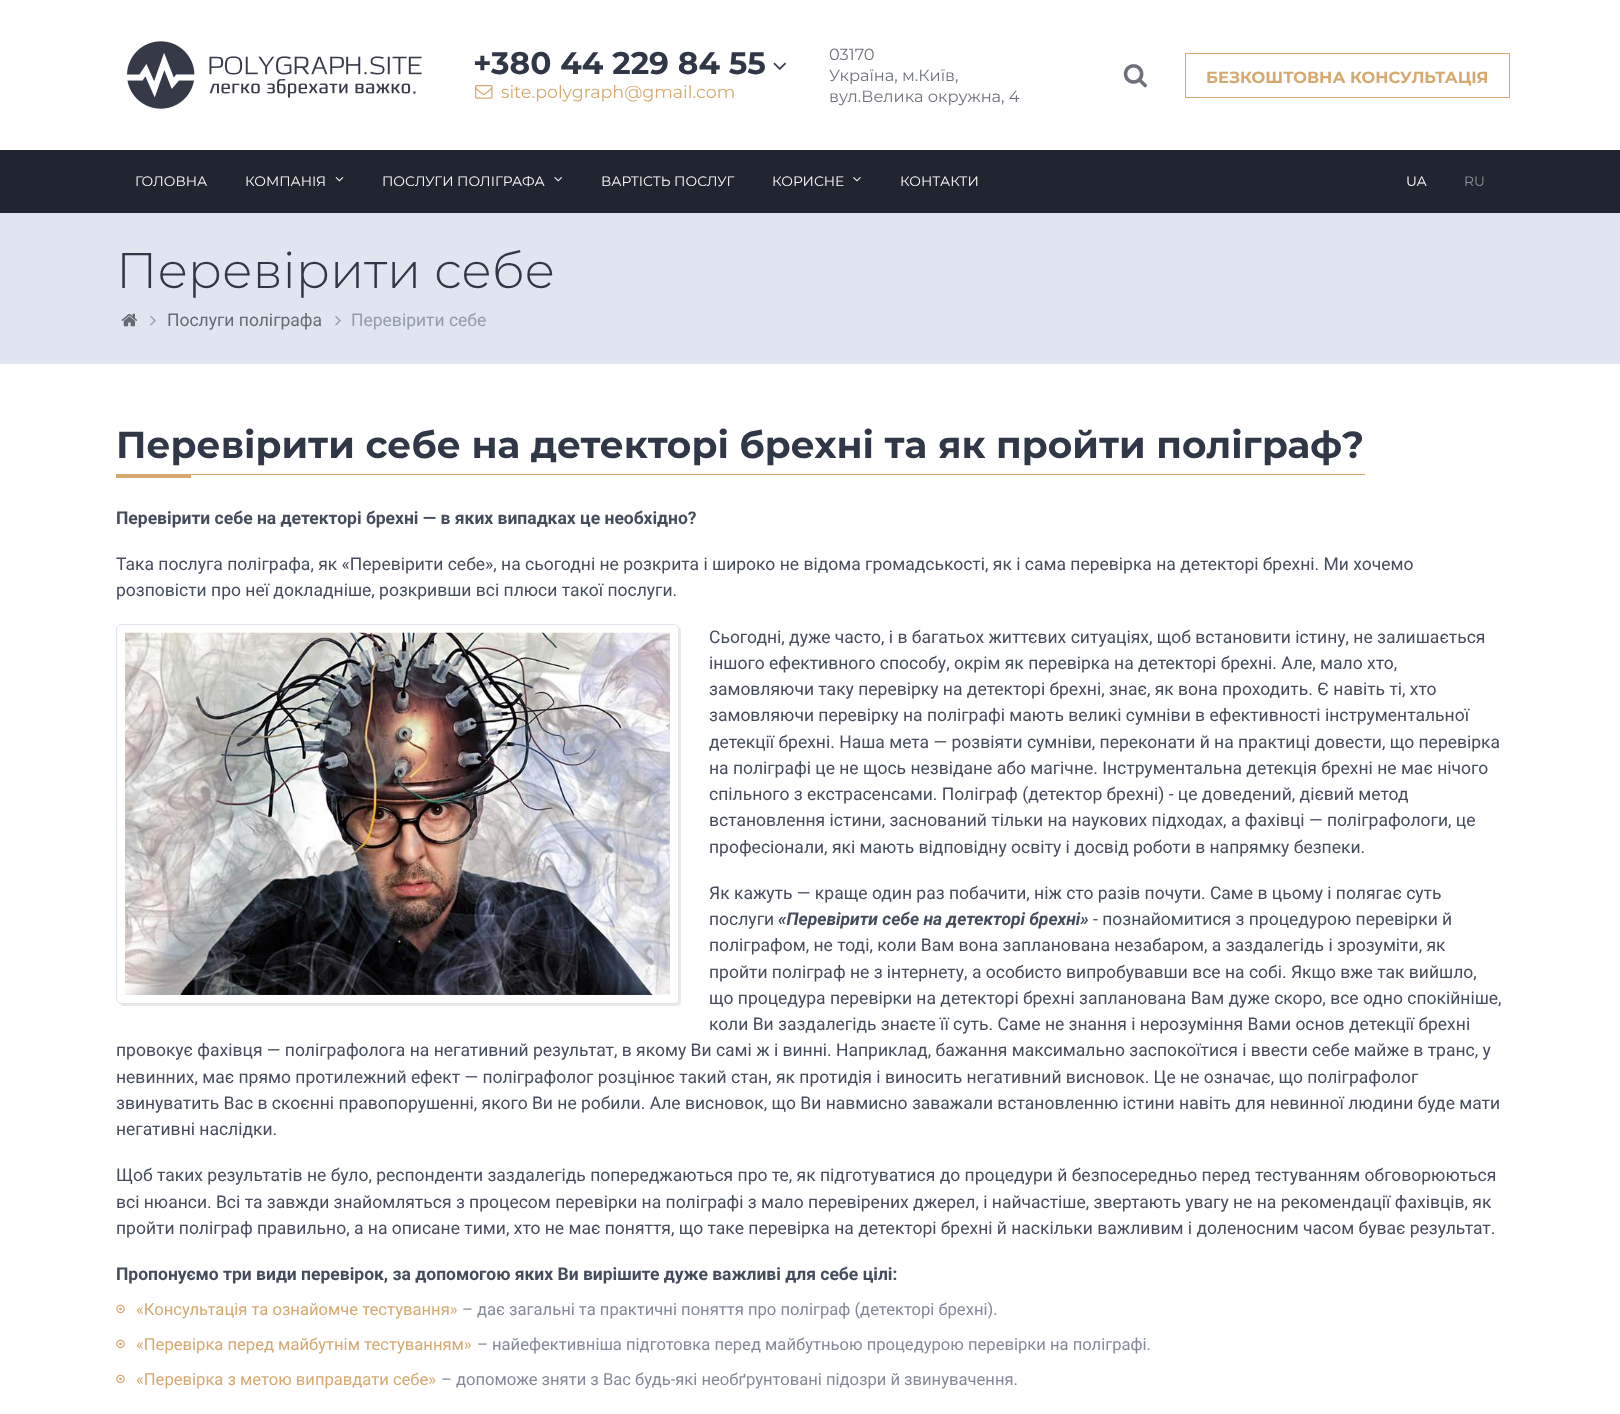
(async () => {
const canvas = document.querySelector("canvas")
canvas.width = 1620
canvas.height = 1414
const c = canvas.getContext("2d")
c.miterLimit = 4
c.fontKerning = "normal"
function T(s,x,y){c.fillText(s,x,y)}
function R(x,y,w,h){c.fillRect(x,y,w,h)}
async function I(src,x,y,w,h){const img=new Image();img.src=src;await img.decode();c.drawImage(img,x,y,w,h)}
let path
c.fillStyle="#fff"
R(0,0,1620,1414)
await I("1.png",127,41,295,68)
c.font="bold 31.25px Montserrat"
c.fillStyle="#303747"
T("+380 44 229 84 55",473,74)
await I("2.png",773,62,13,8)
await I("3.png",475,85,18,14)
c.font="17.5px Montserrat"
c.fillStyle="#d5a96f"
T("site.polygraph@gmail.com",501,98)
c.font="16.25px Montserrat"
c.fillStyle="#6c7079"
T("03170",829,60)
T("Україна, м.Київ,",829,81)
T("вул.Велика окружна, 4",829,102)
await I("4.png",1123,64,24,24)
c.strokeStyle="#d5a96f"
c.strokeRect(1185.5,53.5,324,44)
c.font="bold 16.25px Montserrat"
c.fillStyle="#d5a96f"
T("БЕЗКОШТОВНА КОНСУЛЬТАЦІЯ",1206,83)
c.fillStyle="#212530"
R(0,150,1620,63)
c.font="13.75px Montserrat"
c.fillStyle="#fff"
T("ГОЛОВНА",135,186)
T("КОМПАНІЯ",245,186)
await I("5.png",335,177,9,5)
T("ПОСЛУГИ ПОЛІГРАФА",382,186)
await I("6.png",554,177,8,5)
T("ВАРТІСТЬ ПОСЛУГ",601,186)
T("КОРИСНЕ",772,186)
await I("7.png",853,177,8,5)
T("КОНТАКТИ",900,186)
T("UA",1406,186)
c.fillStyle="#909298"
T("RU",1464,186)
c.fillStyle="#e0e5ef"
R(0,213,1620,151)
c.font="300 50px Montserrat"
c.fillStyle="#303747"
T("Перевірити себе",116,288)
await I("8.png",121,313,17,14)
await I("9.png",150,315,6,11)
c.font="17.5px Roboto"
c.fillStyle="#636c72"
T("Послуги поліграфа",167,326)
await I("9.png",335,315,6,11)
c.fillStyle="#939da5"
T("Перевірити себе",351,326)
c.font="bold 37.5px Montserrat"
c.fillStyle="#303747"
T("Перевірити себе на детекторі брехні та як пройти поліграф?",116,458)
c.fillStyle="#d5a96f"
R(116,474,1249,1)
R(116,475,75,3)
c.font="bold 17.5px Roboto"
c.fillStyle="#454c5c"
T("Перевірити себе на детекторі брехні — в яких випадках це необхідно?",116,524)
c.font="17.5px Roboto"
T("Така послуга поліграфа, як «Перевірити себе», на сьогодні не розкрита і широко не відома громадськості, як і сама перевірка на детекторі брехні. Ми хочемо",116,570)
T("розповісти про неї докладніше, розкривши всі плюси такої послуги.",116,596)
c.fillStyle="#e9e9ea"
path = new Path2D("M120 1003c1 2 2 3 4 3h552c3 0 5-2 5-5v-370c0-2-1-4-3-4l1 2v370c0 3-2 5-5 5z")
c.fill(path)
c.fillStyle="#fff"
c.beginPath()
c.roundRect(116.5,624.5,562,379,4.5)
c.fill()
c.strokeStyle="#e0e5ef"
c.stroke()
await I("10.png",125,632,545,363)
c.fillStyle="#454c5c"
T("Сьогодні, дуже часто, і в багатьох життєвих ситуаціях, щоб встановити істину, не залишається",709,643)
T("іншого ефективного способу, окрім як перевірка на детекторі брехні. Але, мало хто,",709,669)
T("замовляючи таку перевірку на детекторі брехні, знає, як вона проходить. Є навіть ті, хто",709,695)
T("замовляючи перевірку на поліграфі мають великі сумніви в ефективності інструментальної",709,721)
T("детекції брехні. Наша мета — розвіяти сумніви, переконати й на практиці довести, що перевірка",709,748)
T("на поліграфі це не щось незвідане або магічне. Інструментальна детекція брехні не має нічого",709,774)
T("спільного з екстрасенсами. Поліграф (детектор брехні) - це доведений, дієвий метод",709,800)
T("встановлення істини, заснований тільки на наукових підходах, а фахівці — поліграфологи, це",709,826)
T("професіонали, які мають відповідну освіту і досвід роботи в напрямку безпеки.",709,853)
T("Як кажуть — краще один раз побачити, ніж сто разів почути. Саме в цьому і полягає суть",709,899)
T("послуги",709,925)
c.font="italic bold 17.5px Roboto"
T("«Перевірити себе на детекторі брехні»",778,925)
c.font="17.5px Roboto"
T("- познайомитися з процедурою перевірки й",1093,925)
T("поліграфом, не тоді, коли Вам вона запланована незабаром, а заздалегідь і зрозуміти, як",709,951)
T("пройти поліграф не з інтернету, а особисто випробувавши все на собі. Якщо вже так вийшло,",709,978)
T("що процедура перевірки на детекторі брехні запланована Вам дуже скоро, все одно спокійніше,",709,1004)
T("коли Ви заздалегідь знаєте її суть. Саме не знання і нерозуміння Вами основ детекції брехні",709,1030)
T("провокує фахівця — поліграфолога на негативний результат, в якому Ви самі ж і винні. Наприклад, бажання максимально заспокоїтися і ввести себе майже в транс, у",116,1056)
T("невинних, має прямо протилежний ефект — поліграфолог розцінює такий стан, як протидія і виносить негативний висновок. Це не означає, що поліграфолог",116,1083)
T("звинуватить Вас в скоєнні правопорушенні, якого Ви не робили. Але висновок, що Ви навмисно заважали встановленню істини навіть для невинної людини буде мати",116,1109)
T("негативні наслідки.",116,1135)
T("Щоб таких результатів не було, респонденти заздалегідь попереджаються про те, як підготуватися до процедури й безпосередньо перед тестуванням обговорюються",116,1181)
T("всі нюанси. Всі та завжди знайомляться з процесом перевірки на поліграфі з мало перевірених джерел, і найчастіше, звертають увагу не на рекомендації фахівців, як",116,1208)
T("пройти поліграф правильно, а на описане тими, хто не має поняття, що таке перевірка на детекторі брехні й наскільки важливим і доленосним часом буває результат.",116,1234)
c.font="bold 17.5px Roboto"
T("Пропонуємо три види перевірок, за допомогою яких Ви вирішите дуже важливі для себе цілі:",116,1280)
await I("11.png",116,1304,9,10)
c.font="16.6px Roboto"
c.fillStyle="#d5a96f"
T("«Консультація та ознайомче тестування»",136,1315)
c.fillStyle="#838998"
T("– дає загальні та практичні поняття про поліграф (детекторі брехні).",462,1315)
await I("11.png",116,1339,9,10)
c.fillStyle="#d5a96f"
T("«Перевірка перед майбутнім тестуванням»",136,1350)
c.fillStyle="#838998"
T("– найефективніша підготовка перед майбутньою процедурою перевірки на поліграфі.",477,1350)
await I("11.png",116,1374,9,10)
c.fillStyle="#d5a96f"
T("«Перевірка з метою виправдати себе»",136,1385)
c.fillStyle="#838998"
T("– допоможе зняти з Вас будь-які необґрунтовані підозри й звинувачення.",441,1385)
})()
